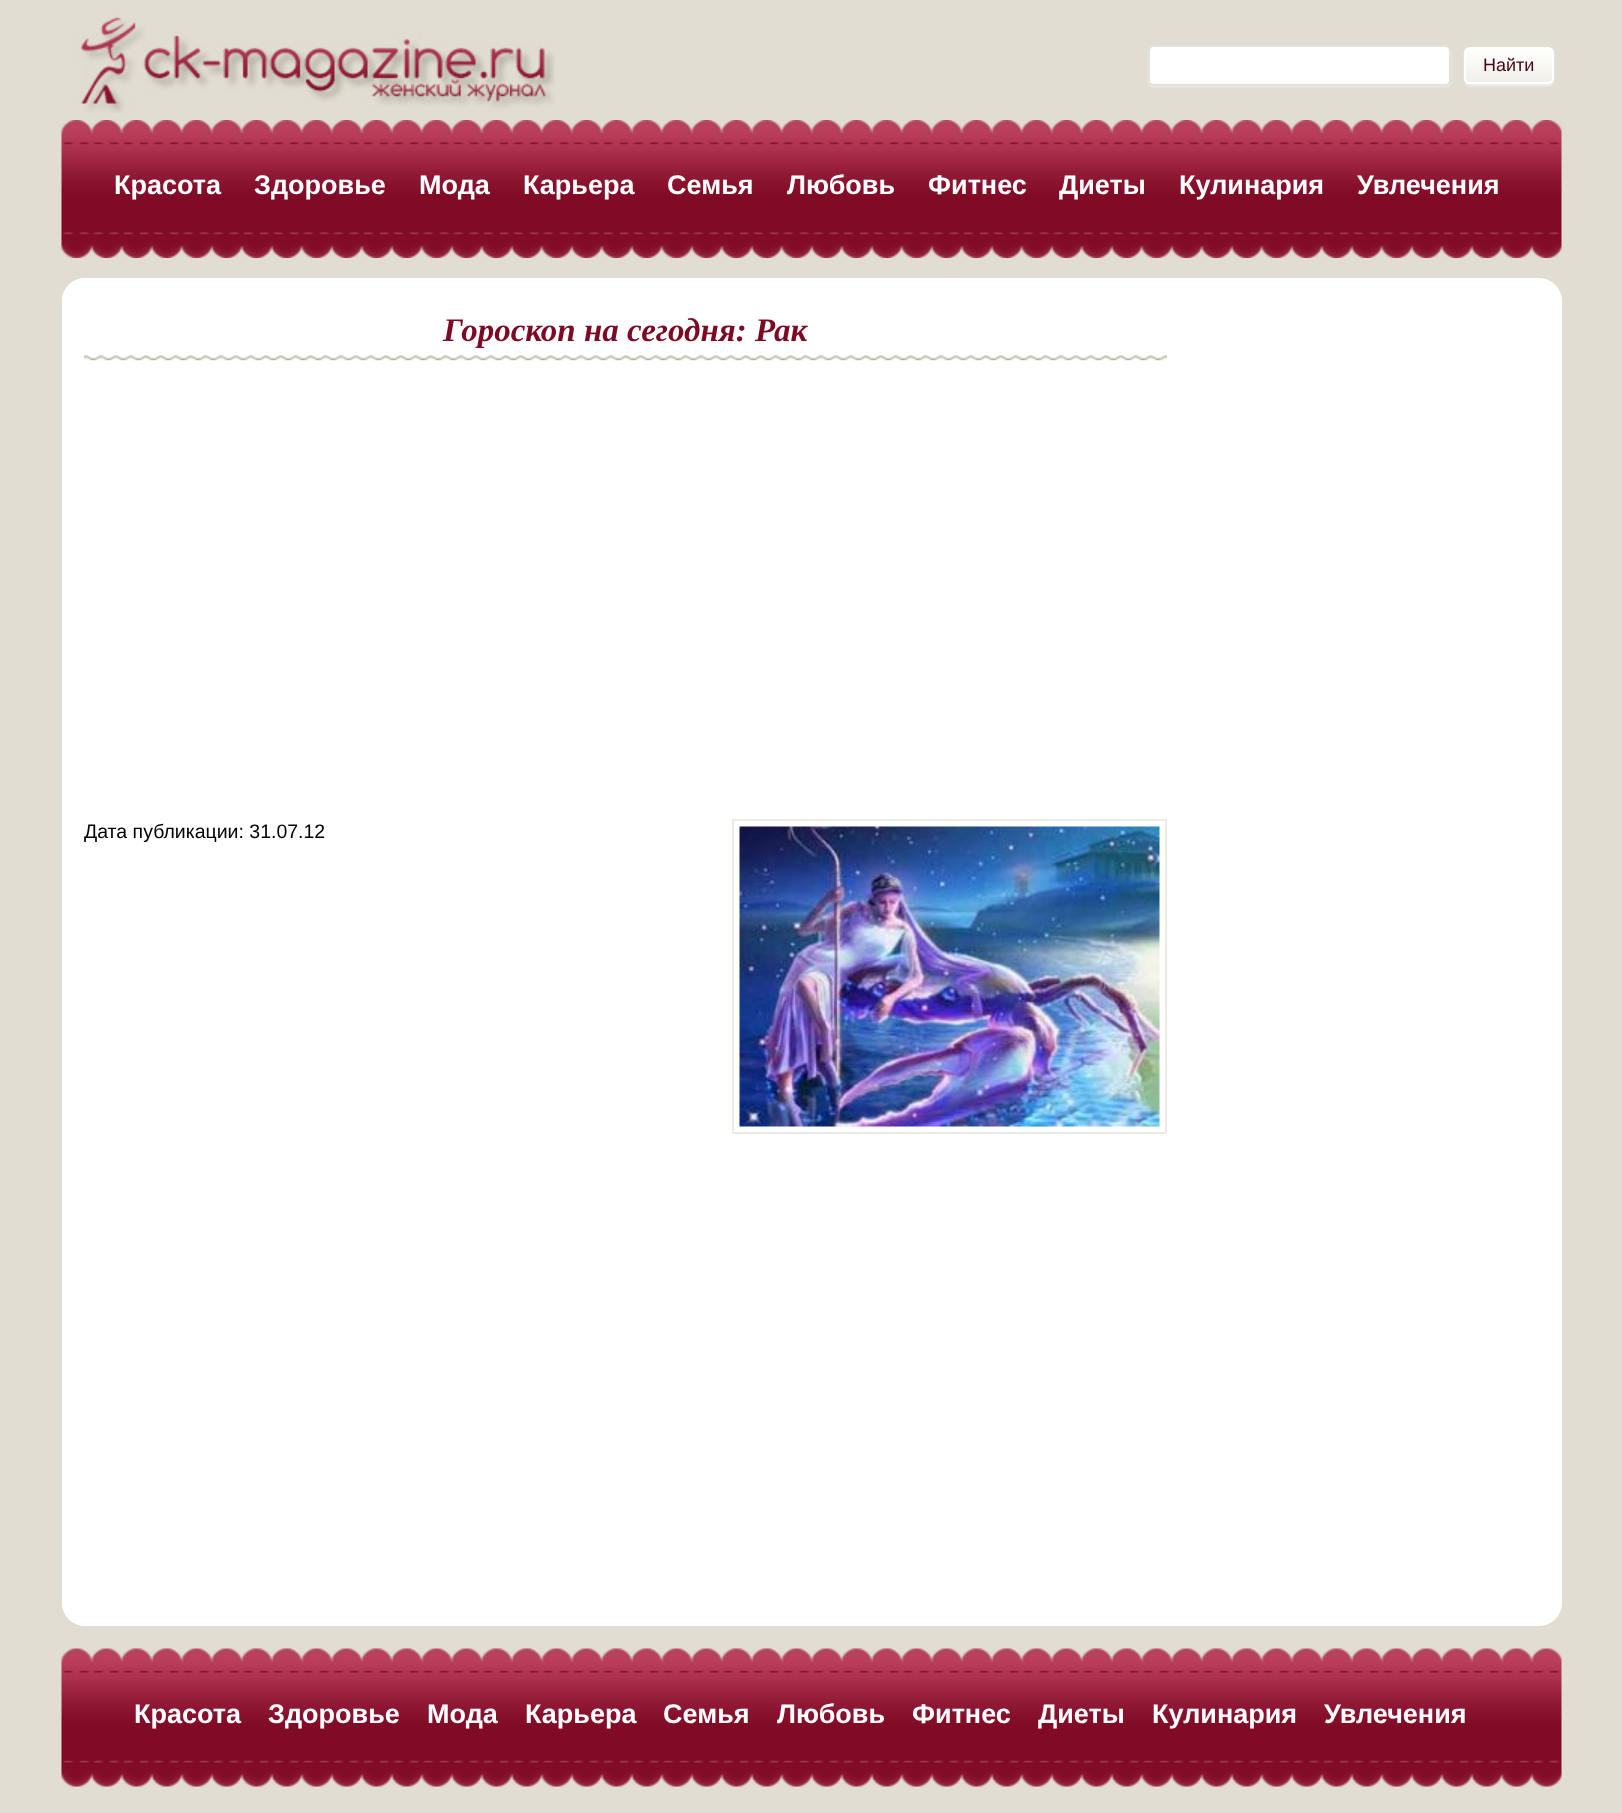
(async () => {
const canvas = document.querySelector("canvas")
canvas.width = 1622
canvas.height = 1813
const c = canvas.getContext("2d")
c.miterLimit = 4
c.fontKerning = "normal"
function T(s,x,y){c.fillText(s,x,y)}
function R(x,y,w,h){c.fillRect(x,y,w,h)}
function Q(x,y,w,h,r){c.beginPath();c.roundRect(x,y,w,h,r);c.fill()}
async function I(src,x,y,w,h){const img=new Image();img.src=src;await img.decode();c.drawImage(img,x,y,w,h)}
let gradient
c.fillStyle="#e1ddd2"
R(0,0,1622,1813)
await I("1.png",74,9,481,104)
c.fillStyle="#eee"
c.filter="blur(1px)"
c.beginPath()
c.roundRect(1148,47,303,40,6)
c.fill()
c.filter="none"
c.fillStyle="#fff"
c.beginPath()
c.roundRect(1149,46,301,39,5)
c.fill()
c.strokeStyle="#e2e0d8"
c.lineWidth=2
c.stroke()
c.fillStyle="#eee"
c.filter="blur(1px)"
c.beginPath()
c.roundRect(1464,48,90,38,6)
c.fill()
c.filter="none"
c.save()
c.beginPath()
c.roundRect(1464,47,90,37,6)
c.clip()
gradient = c.createLinearGradient(1466,48,1466,83)
gradient.addColorStop(0,"#fff")
gradient.addColorStop(1,"#f1efe7")
c.fillStyle = gradient
R(1464,48,90,35)
c.restore()
c.beginPath()
c.roundRect(1465,48,88,35,5)
c.strokeStyle="#fff"
c.stroke()
c.font="18px Liberation Sans"
c.fillStyle="#4a0415"
T("Найти",1483,71)
await I("2.png",61,120,1501,138)
c.font="bold 27px Liberation Sans"
c.fillStyle="#fff"
T("Красота",114,194)
T("Здоровье",254,194)
T("Мода",419,194)
T("Карьера",523,194)
T("Семья",667,194)
T("Любовь",787,194)
T("Фитнес",928,194)
T("Диеты",1059,194)
T("Кулинария",1179,194)
T("Увлечения",1357,194)
Q(62,278,1500,1348,23)
c.beginPath()
c.roundRect(62,278,1135,1348,[23,0,0,23])
c.fill()
await I("3.png",84,355,1083,7)
c.font="italic bold 33px Liberation Serif"
c.fillStyle="#7c0a25"
T("Гороскоп на сегодня: Рак",443,341)
c.font="19.5px Liberation Sans"
c.fillStyle="#000"
T("Дата публикации: 31.07.12",84,838)
c.strokeStyle="#ebebe6"
c.strokeRect(733,820,433,313)
await I("4.png",739,826,421,301)
await I("5.png",61,1648,1501,139)
c.font="bold 27px Liberation Sans"
c.fillStyle="#fff"
T("Красота",134,1723)
T("Здоровье",268,1723)
T("Мода",427,1723)
T("Карьера",525,1723)
T("Семья",663,1723)
T("Любовь",777,1723)
T("Фитнес",912,1723)
T("Диеты",1038,1723)
T("Кулинария",1152,1723)
T("Увлечения",1324,1723)
})()
